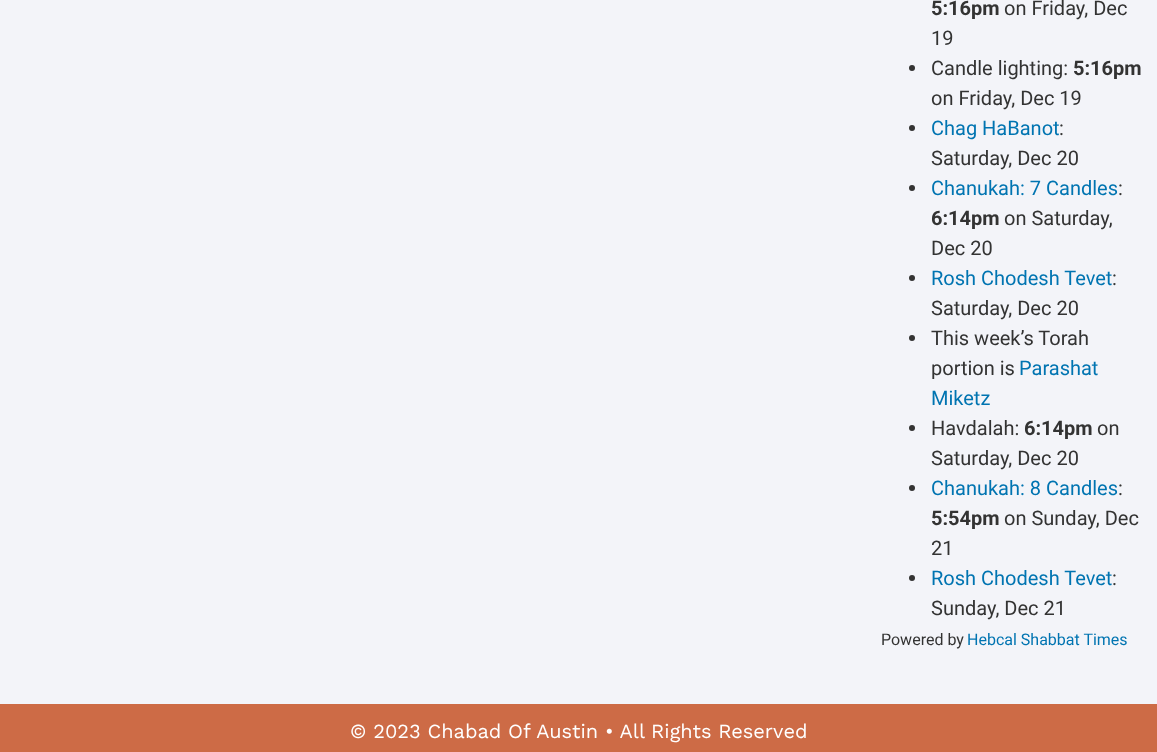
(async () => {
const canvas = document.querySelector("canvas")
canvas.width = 1157
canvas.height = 752
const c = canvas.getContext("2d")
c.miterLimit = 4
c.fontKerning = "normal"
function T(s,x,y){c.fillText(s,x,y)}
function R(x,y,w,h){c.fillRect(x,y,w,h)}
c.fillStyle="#f3f4f9"
R(0,0,1157,752)
c.font="bold 20px Roboto"
c.fillStyle="#333"
T("5:16pm",931,15)
c.font="20px Roboto"
T("on Friday, Dec",1004,15)
T("19",931,45)
c.beginPath()
c.arc(912,68,3,0,7)
c.fill()
T("Candle lighting:",931,75)
c.font="bold 20px Roboto"
T("5:16pm",1073,75)
c.font="20px Roboto"
T("on Friday, Dec 19",931,105)
c.beginPath()
c.arc(912,128,3,0,7)
c.fill()
c.fillStyle="#0074b1"
T("Chag HaBanot",931,135)
c.fillStyle="#333"
T(":",1059,135)
T("Saturday, Dec 20",931,165)
c.beginPath()
c.arc(912,188,3,0,7)
c.fill()
c.fillStyle="#0074b1"
T("Chanukah: 7 Candles",931,195)
c.fillStyle="#333"
T(":",1118,195)
c.font="bold 20px Roboto"
T("6:14pm",931,225)
c.font="20px Roboto"
T("on Saturday,",1004,225)
T("Dec 20",931,255)
c.beginPath()
c.arc(912,278,3,0,7)
c.fill()
c.fillStyle="#0074b1"
T("Rosh Chodesh Tevet",931,285)
c.fillStyle="#333"
T(":",1112,285)
T("Saturday, Dec 20",931,315)
c.beginPath()
c.arc(912,338,3,0,7)
c.fill()
T("This week’s Torah",931,345)
T("portion is",931,375)
c.fillStyle="#0074b1"
T("Parashat",1019,375)
T("Miketz",931,405)
c.fillStyle="#333"
c.beginPath()
c.arc(912,428,3,0,7)
c.fill()
T("Havdalah:",931,435)
c.font="bold 20px Roboto"
T("6:14pm",1024,435)
c.font="20px Roboto"
T("on",1097,435)
T("Saturday, Dec 20",931,465)
c.beginPath()
c.arc(912,488,3,0,7)
c.fill()
c.fillStyle="#0074b1"
T("Chanukah: 8 Candles",931,495)
c.fillStyle="#333"
T(":",1118,495)
c.font="bold 20px Roboto"
T("5:54pm",931,525)
c.font="20px Roboto"
T("on Sunday, Dec",1004,525)
T("21",931,555)
c.beginPath()
c.arc(912,578,3,0,7)
c.fill()
c.fillStyle="#0074b1"
T("Rosh Chodesh Tevet",931,585)
c.fillStyle="#333"
T(":",1112,585)
T("Sunday, Dec 21",931,615)
c.font="16px Roboto"
T("Powered by",881,645)
c.fillStyle="#0074b1"
T("Hebcal Shabbat Times",967,645)
c.fillStyle="#cd6b46"
R(0,704,1157,48)
c.font="20px Work Sans"
c.fillStyle="#fff"
T("© 2023 Chabad Of Austin • All Rights Reserved",350,738)
})()
